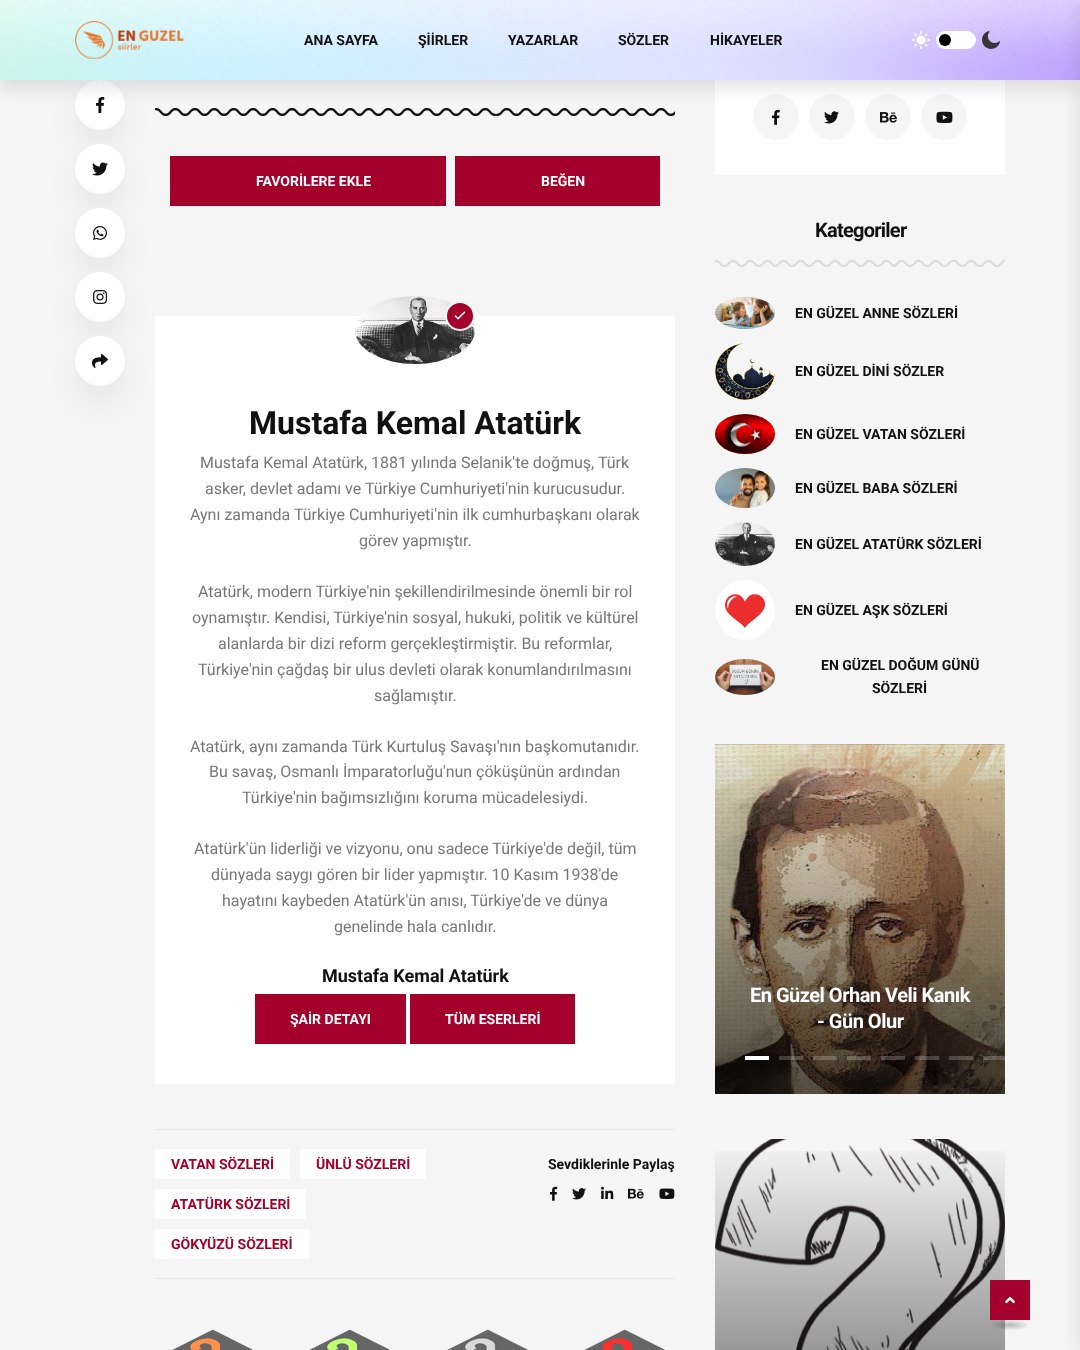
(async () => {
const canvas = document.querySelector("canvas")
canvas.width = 1080
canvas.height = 1350
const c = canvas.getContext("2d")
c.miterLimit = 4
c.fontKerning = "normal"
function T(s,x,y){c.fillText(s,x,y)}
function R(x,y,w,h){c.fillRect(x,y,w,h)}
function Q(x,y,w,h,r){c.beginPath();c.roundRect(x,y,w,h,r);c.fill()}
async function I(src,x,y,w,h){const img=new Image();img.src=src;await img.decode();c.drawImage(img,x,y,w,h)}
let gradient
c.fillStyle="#f5f5f5"
R(0,0,1080,1350)
c.fillStyle="#0000000f"
c.filter="blur(16px)"
c.beginPath()
c.roundRect(75,96,50,50,25)
c.fill()
c.filter="none"
c.fillStyle="#fff"
c.beginPath()
c.arc(100,105,25,0,7)
c.fill()
await I("5.png",96,97,9,16)
c.fillStyle="#0000000f"
c.filter="blur(16px)"
c.beginPath()
c.roundRect(75,160,50,50,25)
c.fill()
c.filter="none"
await I("10.png",155,108,520,8)
c.fillStyle="#fff"
R(715,80,290,95)
c.fillStyle="#f5f5f5"
c.beginPath()
c.arc(776,117,23,0,7)
c.fill()
await I("22.png",772,109,8,16)
c.beginPath()
c.arc(832,117,23,0,7)
c.fill()
await I("23.png",824,111,15,13)
c.beginPath()
c.arc(888,117,23,0,7)
c.fill()
await I("24.png",880,112,17,11)
c.beginPath()
c.arc(944,117,23,0,7)
c.fill()
await I("25.png",936,111,17,12)
c.fillStyle="#1919191a"
c.filter="blur(7.5px)"
c.beginPath()
c.rect(0,10,1080,80)
c.fill()
c.filter="none"
await I("1.png",0,0,1080,80)
await I("2.png",75,21,109,38)
c.font="bold 14px Roboto"
c.fillStyle="#111"
T("ANA SAYFA",304,45)
T("ŞİİRLER",418,45)
T("YAZARLAR",508,45)
T("SÖZLER",618,45)
T("HİKAYELER",710,45)
await I("3.png",912,31,18,18)
c.fillStyle="#fff"
Q(936,31,40,18,9)
c.fillStyle="#000"
c.beginPath()
c.arc(945,40,6,0,7)
c.fill()
await I("4.png",982,31,18,18)
c.fillStyle="#0000000f"
c.filter="blur(7px)"
c.beginPath()
c.rect(1074,0,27,1350)
c.fill()
c.filter="none"
c.fillStyle="#fff"
c.beginPath()
c.arc(100,169,25,0,7)
c.fill()
await I("6.png",92,162,16,14)
R(155,316,520,768)
c.fillStyle="#0000000f"
c.filter="blur(16px)"
c.beginPath()
c.roundRect(75,224,50,50,25)
c.fill()
c.filter="none"
c.fillStyle="#fff"
c.beginPath()
c.arc(100,233,25,0,7)
c.fill()
await I("7.png",93,226,14,14)
c.fillStyle="#0000000f"
c.filter="blur(16px)"
c.beginPath()
c.roundRect(75,288,50,50,25)
c.fill()
c.filter="none"
c.fillStyle="#fff"
c.beginPath()
c.arc(100,297,25,0,7)
c.fill()
await I("8.png",93,290,15,14)
c.fillStyle="#0000000f"
c.filter="blur(16px)"
c.beginPath()
c.roundRect(75,352,50,50,25)
c.fill()
c.filter="none"
c.fillStyle="#fff"
c.beginPath()
c.arc(100,361,25,0,7)
c.fill()
await I("9.png",92,354,16,14)
c.fillStyle="#a3002c"
R(170,156,276,50)
c.fillStyle="#fff"
T("FAVORİLERE EKLE",256,186)
c.fillStyle="#a3002c"
R(455,156,205,50)
c.fillStyle="#fff"
T("BEĞEN",541,186)
await I("11.png",355,296,120,68)
c.fillStyle="#a3002c"
c.beginPath()
c.arc(460,316,14,0,7)
c.fill()
c.strokeStyle="#f5f5f5"
c.lineWidth=2
c.stroke()
await I("12.png",454,311,12,9)
c.font="bold 32px Roboto"
c.fillStyle="#111"
T("Mustafa Kemal Atatürk",249,434)
c.font="16px Roboto"
c.fillStyle="#777"
T("Mustafa Kemal Atatürk, 1881 yılında Selanik'te doğmuş, Türk",200,468)
T("asker, devlet adamı ve Türkiye Cumhuriyeti'nin kurucusudur.",205,494)
T("Aynı zamanda Türkiye Cumhuriyeti'nin ilk cumhurbaşkanı olarak",190,520)
T("görev yapmıştır.",359,546)
T("Atatürk, modern Türkiye'nin şekillendirilmesinde önemli bir rol",198,597)
T("oynamıştır. Kendisi, Türkiye'nin sosyal, hukuki, politik ve kültürel",192,623)
T("alanlarda bir dizi reform gerçekleştirmiştir. Bu reformlar,",218,649)
T("Türkiye'nin çağdaş bir ulus devleti olarak konumlandırılmasını",198,675)
T("sağlamıştır.",374,701)
T("Atatürk, aynı zamanda Türk Kurtuluş Savaşı'nın başkomutanıdır.",190,752)
T("Bu savaş, Osmanlı İmparatorluğu'nun çöküşünün ardından",209,777)
T("Türkiye'nin bağımsızlığını koruma mücadelesiydi.",242,803)
T("Atatürk'ün liderliği ve vizyonu, onu sadece Türkiye'de değil, tüm",194,854)
T("dünyada saygı gören bir lider yapmıştır. 10 Kasım 1938'de",211,880)
T("hayatını kaybeden Atatürk'ün anısı, Türkiye'de ve dünya",222,906)
T("genelinde hala canlıdır.",334,932)
c.font="bold 18px Roboto"
c.fillStyle="#111"
T("Mustafa Kemal Atatürk",322,982)
c.fillStyle="#a3002c"
R(255,994,151,50)
c.font="bold 14px Roboto"
c.fillStyle="#fff"
T("ŞAİR DETAYI",290,1024)
c.fillStyle="#a3002c"
R(410,994,165,50)
c.fillStyle="#fff"
T("TÜM ESERLERİ",445,1024)
c.fillStyle="#e8e8e8"
R(155,1129,520,1)
R(155,1278,520,1)
c.fillStyle="#fff"
R(155,1149,135,30)
c.fillStyle="#a3002c"
T("VATAN SÖZLERİ",171,1169)
c.fillStyle="#fff"
R(300,1149,126,30)
c.fillStyle="#a3002c"
T("ÜNLÜ SÖZLERİ",316,1169)
c.fillStyle="#fff"
R(155,1189,151,30)
c.fillStyle="#a3002c"
T("ATATÜRK SÖZLERİ",171,1209)
c.fillStyle="#fff"
R(155,1229,154,30)
c.fillStyle="#a3002c"
T("GÖKYÜZÜ SÖZLERİ",171,1249)
c.fillStyle="#111"
T("Sevdiklerinle Paylaş",548,1169)
await I("13.png",550,1186,8,15)
await I("14.png",572,1188,14,12)
await I("15.png",601,1186,13,13)
await I("16.png",628,1188,16,11)
await I("17.png",659,1188,16,11)
await I("18.png",172,1329,82,21)
await I("19.png",309,1329,81,21)
await I("20.png",447,1329,82,21)
await I("21.png",584,1329,82,21)
c.letterSpacing="-0.75px"
c.font="bold 20px Roboto"
T("Kategoriler",815,237)
await I("26.png",715,260,290,7)
await I("27.png",715,297,60,32)
c.letterSpacing="0px"
c.font="bold 14px Roboto"
T("EN GÜZEL ANNE SÖZLERİ",795,318)
await I("28.png",715,343,60,57)
T("EN GÜZEL DİNİ SÖZLER",795,376)
await I("29.png",715,414,60,40)
T("EN GÜZEL VATAN SÖZLERİ",795,439)
await I("30.png",715,468,60,40)
T("EN GÜZEL BABA SÖZLERİ",795,493)
await I("31.png",715,522,60,44)
T("EN GÜZEL ATATÜRK SÖZLERİ",795,549)
await I("32.png",715,580,60,60)
T("EN GÜZEL AŞK SÖZLERİ",795,615)
await I("33.png",715,659,60,36)
T("EN GÜZEL DOĞUM GÜNÜ",821,670)
T("SÖZLERİ",872,693)
await I("34.png",715,744,290,350)
gradient = c.createLinearGradient(860,1094,860,744)
gradient.addColorStop(0,"#000000a1")
gradient.addColorStop(1,"#00000000")
c.fillStyle = gradient
R(715,756,290,338)
c.letterSpacing="-0.5px"
c.font="bold 20px Roboto"
c.fillStyle="#fff"
T("En Güzel Orhan Veli Kanık",750,1002)
T("- Gün Olur",817,1028)
R(745,1056,24,4)
c.fillStyle="#ffffff33"
R(779,1056,24,4)
R(813,1056,24,4)
R(847,1056,24,4)
R(881,1056,24,4)
R(915,1056,24,4)
R(949,1056,24,4)
R(983,1056,24,4)
await I("35.png",715,1139,290,211)
gradient = c.createLinearGradient(860,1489,860,1139)
gradient.addColorStop(0,"#000000a1")
gradient.addColorStop(1,"#00000000")
c.fillStyle = gradient
R(715,1151,290,199)
c.fillStyle="#a3002c"
R(990,1280,40,40)
await I("36.png",1005,1296,10,8)
gradient = c.createRadialGradient(1010,4665.49,0,1010,4665.49,25)
gradient.addColorStop(0,"#00000040")
gradient.addColorStop(.8,"#00000000")
c.fillStyle = gradient
c.beginPath()
c.rect(992,1320,36,10)
c.save()
c.clip()
c.scale(1,7.1 / 25)
c.fillRect(0,0,1080,4754)
c.restore()
})()
